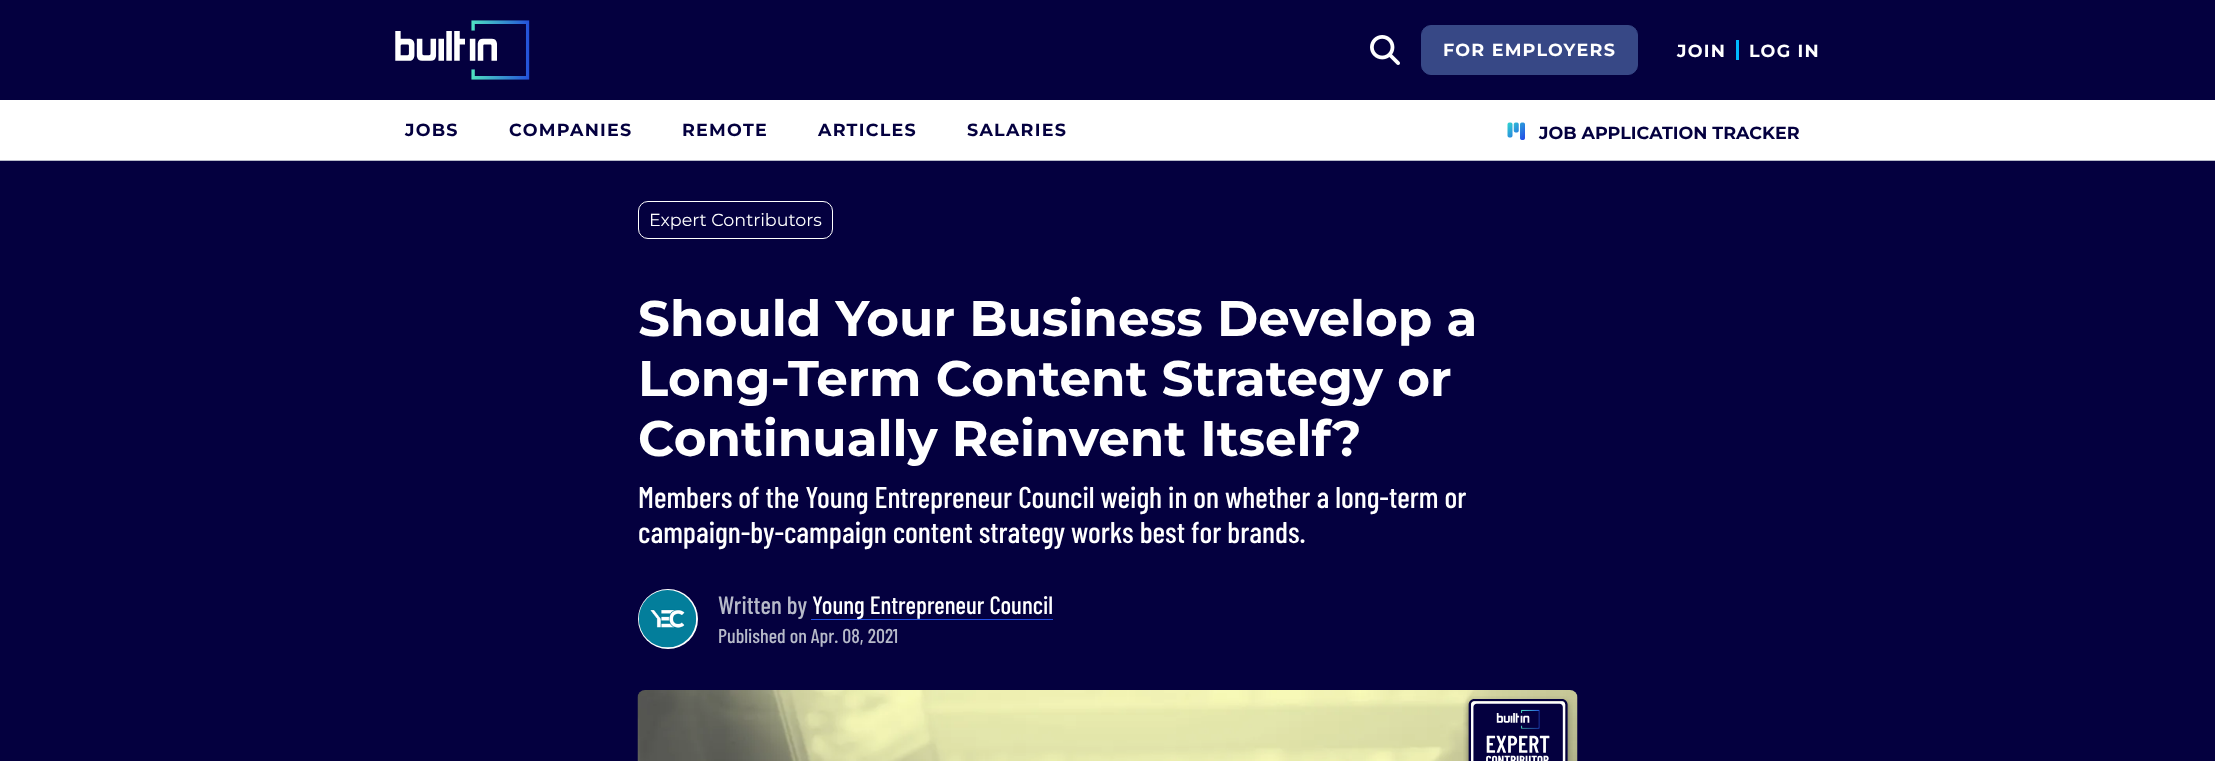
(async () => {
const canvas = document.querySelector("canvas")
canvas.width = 2215
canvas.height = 761
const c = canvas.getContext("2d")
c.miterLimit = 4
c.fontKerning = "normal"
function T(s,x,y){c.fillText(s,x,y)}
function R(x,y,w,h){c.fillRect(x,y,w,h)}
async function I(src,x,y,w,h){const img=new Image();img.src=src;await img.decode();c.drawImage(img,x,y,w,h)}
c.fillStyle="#fff"
R(0,0,2215,761)
c.fillStyle="#04003f"
R(0,0,2215,100)
await I("1.png",395,20,135,60)
await I("2.png",1370,35,30,30)
c.fillStyle="#374886"
c.beginPath()
c.roundRect(1421.5,25.5,216,49,9.5)
c.fill()
c.strokeStyle="#374886"
c.stroke()
c.letterSpacing="1.25px"
c.font="100 17.5px 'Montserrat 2'"
c.fillStyle="#fff"
T("FOR EMPLOYERS",1443,56)
T("JOIN",1677,57)
c.fillStyle="#00b9fe"
R(1736,40,3,20)
c.fillStyle="#fff"
T("LOG IN",1749,57)
c.fillStyle="#b7bac9"
R(0,160,2215,1)
c.fillStyle="#04003f"
T("JOBS",405,136)
T("COMPANIES",509,136)
T("REMOTE",682,136)
T("ARTICLES",818,136)
T("SALARIES",967,136)
await I("3.png",1507,122,18,18)
c.letterSpacing="0px"
T("JOB APPLICATION TRACKER",1539,139)
R(0,161,2215,600)
c.beginPath()
c.roundRect(638.5,201.5,194,37,9.5)
c.strokeStyle="#fff"
c.stroke()
c.font="100 17.5px Montserrat"
c.fillStyle="#fff"
T("Expert Contributors",649,226)
c.font="100 50px 'Montserrat 2'"
T("Should Your Business Develop a",638,336)
T("Long-Term Content Strategy or",638,396)
T("Continually Reinvent Itself?",638,456)
c.font="500 30px Barlow Condensed"
T("Members of the Young Entrepreneur Council weigh in on whether a long-term or",638,508)
T("campaign-by-campaign content strategy works best for brands.",638,543)
c.beginPath()
c.arc(668,619,30,0,7)
c.fill()
await I("4.png",638,590,59,58)
c.font="500 25px Barlow Condensed"
c.fillStyle="#b7bac9"
T("Written by",718,614)
c.fillStyle="#244fe7"
R(811,619,242,1)
c.fillStyle="#fff"
T("Young Entrepreneur Council",812,614)
c.font="500 20px Barlow Condensed"
c.fillStyle="#b7bac9"
T("Published on Apr. 08, 2021",718,643)
await I("5.png",637,690,941,71)
await I("6.png",1463,696,110,65)
})()
